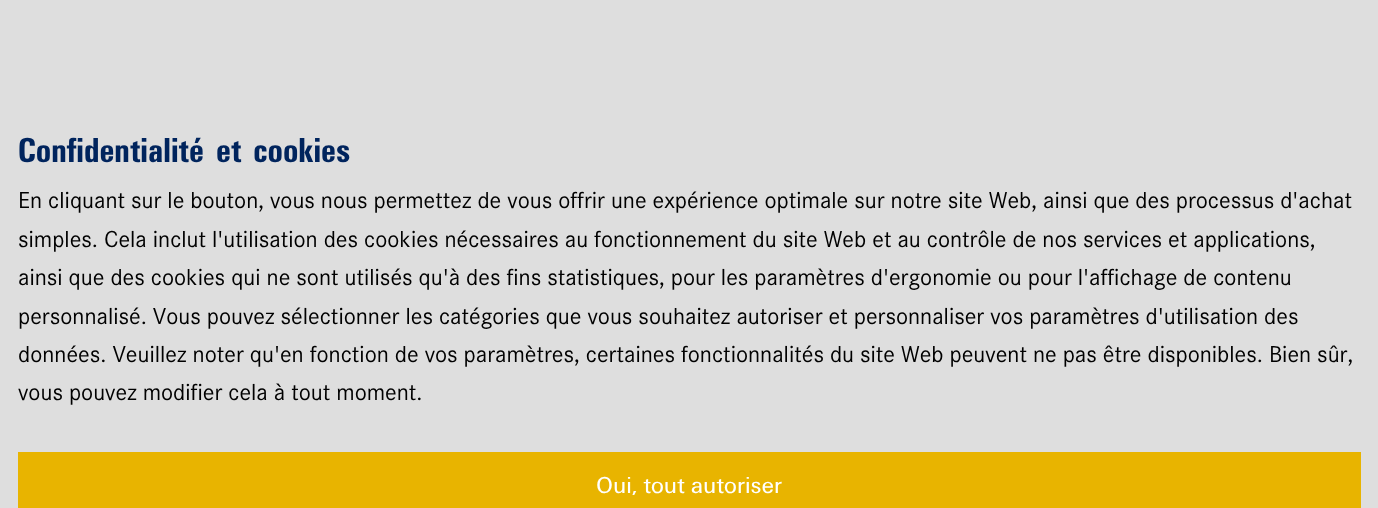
(async () => {
const canvas = document.querySelector("canvas")
canvas.width = 1378
canvas.height = 508
const c = canvas.getContext("2d")
c.miterLimit = 4
c.fontKerning = "normal"
function T(s,x,y){c.fillText(s,x,y)}
function R(x,y,w,h){c.fillRect(x,y,w,h)}
c.fillStyle="#dedede"
R(0,0,1378,508)
c.font="bold 36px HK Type"
c.fillStyle="#00245d"
T("Confidentialité et cookies",18,162)
c.font="24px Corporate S"
c.fillStyle="#000"
T("En cliquant sur le bouton, vous nous permettez de vous offrir une expérience optimale sur notre site Web, ainsi que des processus d'achat",18,208)
T("simples. Cela inclut l'utilisation des cookies nécessaires au fonctionnement du site Web et au contrôle de nos services et applications,",18,247)
T("ainsi que des cookies qui ne sont utilisés qu'à des fins statistiques, pour les paramètres d'ergonomie ou pour l'affichage de contenu",18,285)
T("personnalisé. Vous pouvez sélectionner les catégories que vous souhaitez autoriser et personnaliser vos paramètres d'utilisation des",18,324)
T("données. Veuillez noter qu'en fonction de vos paramètres, certaines fonctionnalités du site Web peuvent ne pas être disponibles. Bien sûr,",18,362)
T("vous pouvez modifier cela à tout moment.",18,400)
c.fillStyle="#e8b400"
R(18,452,1343,56)
c.font="24px HK Type"
c.fillStyle="#fff"
T("Oui, tout autoriser",596,493)
})()
